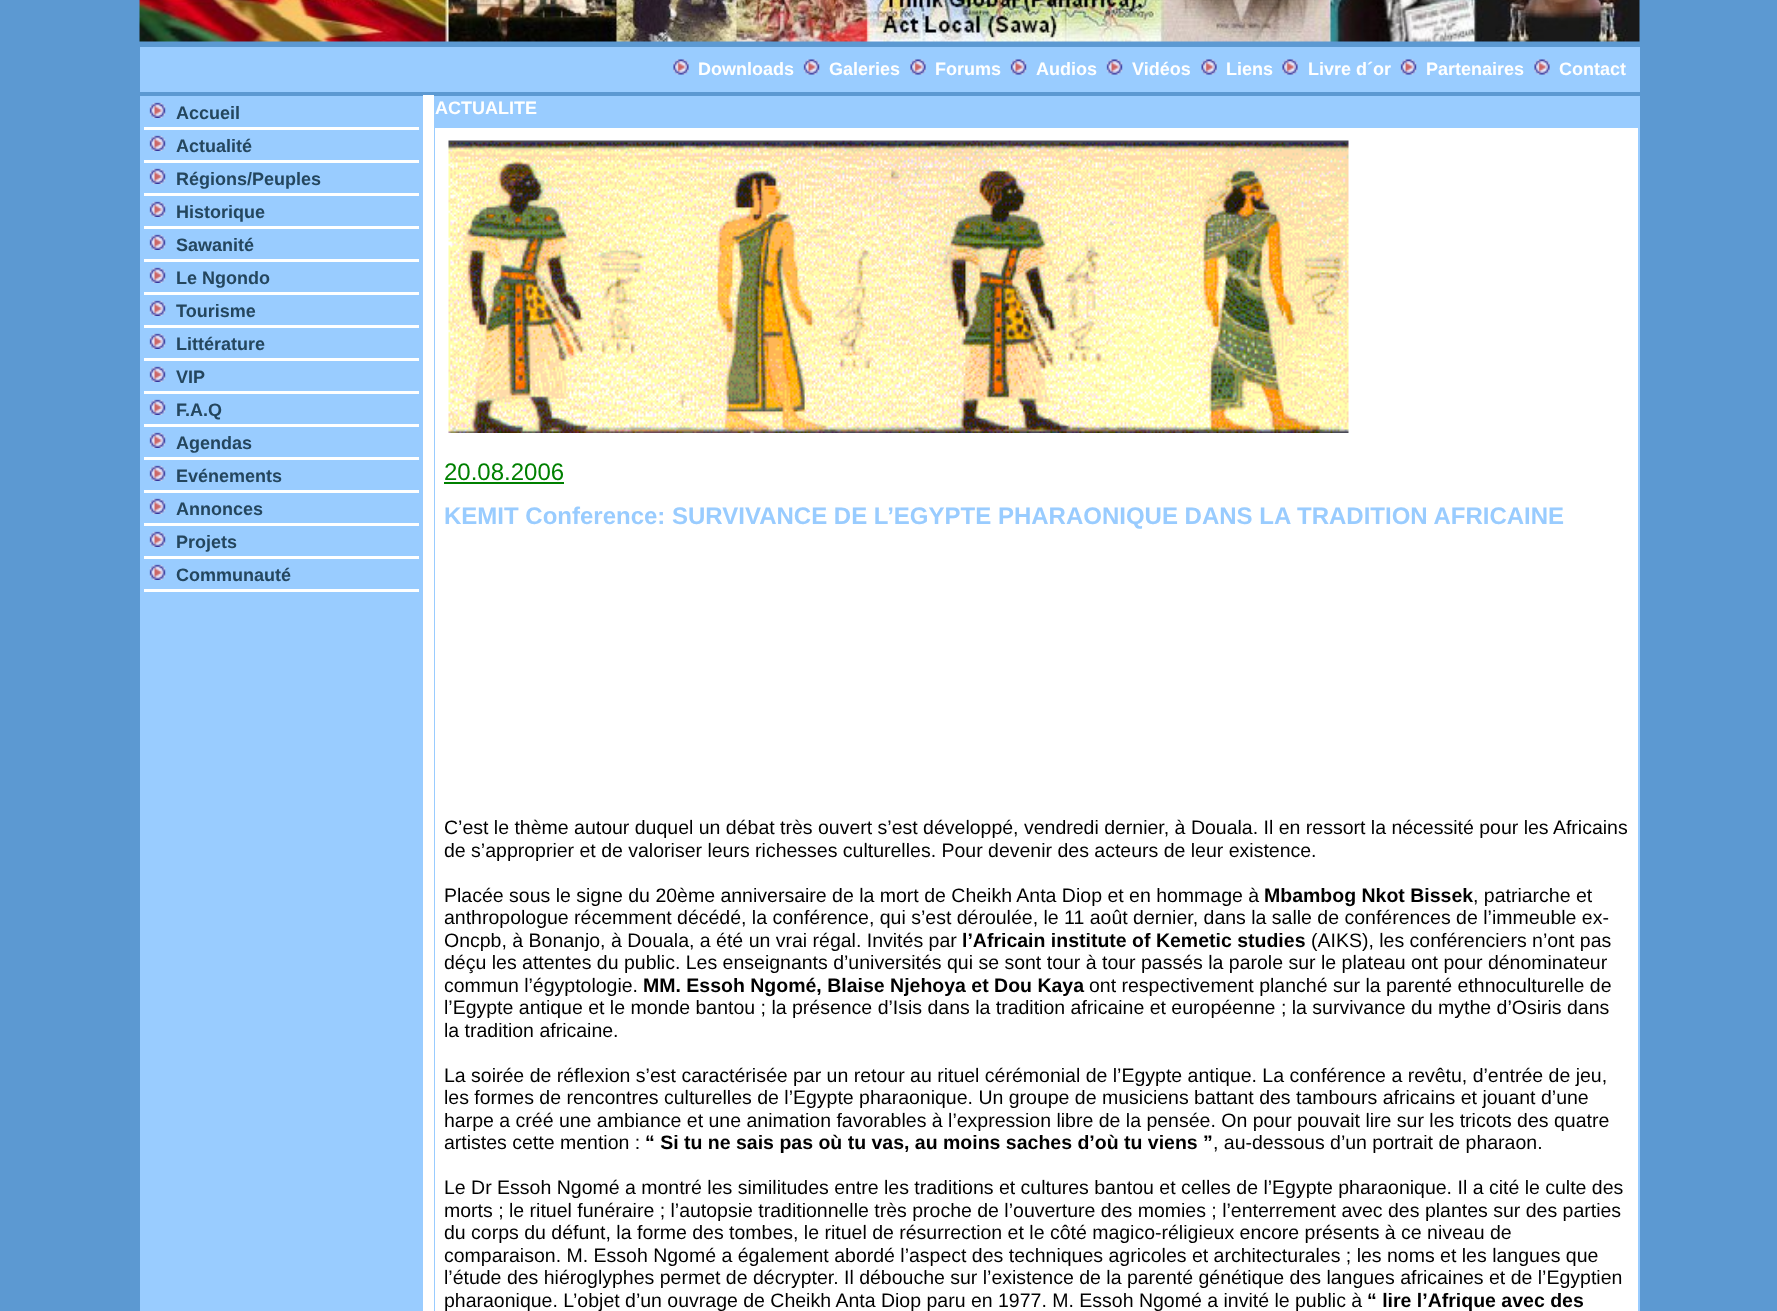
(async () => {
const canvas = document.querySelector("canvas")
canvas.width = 1777
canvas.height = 1311
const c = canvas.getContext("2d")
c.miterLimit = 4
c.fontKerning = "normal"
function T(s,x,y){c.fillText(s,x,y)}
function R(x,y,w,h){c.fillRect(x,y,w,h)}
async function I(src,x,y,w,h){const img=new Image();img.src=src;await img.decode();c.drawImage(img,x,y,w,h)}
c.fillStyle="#5c99d2"
R(0,0,1777,1311)
await I("1.png",139,0,1501,42)
c.fillStyle="#9cf"
R(140,47,1500,45)
await I("2.png",673,59,16,16)
c.font="bold 18px Liberation Sans"
c.fillStyle="#fff"
T("Downloads",698,75)
await I("3.png",803,59,17,16)
T("Galeries",829,75)
await I("2.png",910,59,16,16)
T("Forums",935,75)
await I("3.png",1010,59,17,16)
T("Audios",1036,75)
await I("3.png",1106,59,17,16)
T("Vidéos",1132,75)
await I("4.png",1201,59,16,16)
T("Liens",1226,75)
await I("2.png",1282,59,16,16)
T("Livre d´or",1308,75)
await I("5.png",1400,59,17,16)
T("Partenaires",1426,75)
await I("2.png",1534,59,16,16)
T("Contact",1559,75)
c.fillStyle="#9cf"
R(140,96,283,1215)
await I("6.png",149,102,17,16)
c.fillStyle="#24465e"
T("Accueil",176,119)
c.fillStyle="#fff"
R(144,127,275,3)
await I("6.png",149,135,17,16)
c.fillStyle="#24465e"
T("Actualité",176,152)
c.fillStyle="#fff"
R(144,160,275,3)
await I("6.png",149,168,17,16)
c.fillStyle="#24465e"
T("Régions/Peuples",176,185)
c.fillStyle="#fff"
R(144,193,275,3)
await I("6.png",149,201,17,16)
c.fillStyle="#24465e"
T("Historique",176,218)
c.fillStyle="#fff"
R(144,226,275,3)
await I("6.png",149,234,17,16)
c.fillStyle="#24465e"
T("Sawanité",176,251)
c.fillStyle="#fff"
R(144,259,275,3)
await I("6.png",149,267,17,16)
c.fillStyle="#24465e"
T("Le Ngondo",176,284)
c.fillStyle="#fff"
R(144,292,275,3)
await I("6.png",149,300,17,16)
c.fillStyle="#24465e"
T("Tourisme",176,317)
c.fillStyle="#fff"
R(144,325,275,3)
await I("6.png",149,333,17,16)
c.fillStyle="#24465e"
T("Littérature",176,350)
c.fillStyle="#fff"
R(144,358,275,3)
await I("6.png",149,366,17,16)
c.fillStyle="#24465e"
T("VIP",176,383)
c.fillStyle="#fff"
R(144,391,275,3)
await I("6.png",149,399,17,16)
c.fillStyle="#24465e"
T("F.A.Q",176,416)
c.fillStyle="#fff"
R(144,424,275,3)
await I("6.png",149,432,17,16)
c.fillStyle="#24465e"
T("Agendas",176,449)
c.fillStyle="#fff"
R(144,457,275,3)
await I("6.png",149,465,17,16)
c.fillStyle="#24465e"
T("Evénements",176,482)
c.fillStyle="#fff"
R(144,490,275,3)
await I("6.png",149,498,17,16)
c.fillStyle="#24465e"
T("Annonces",176,515)
c.fillStyle="#fff"
R(144,523,275,3)
await I("6.png",149,531,17,16)
c.fillStyle="#24465e"
T("Projets",176,548)
c.fillStyle="#fff"
R(144,556,275,3)
await I("6.png",149,564,17,16)
c.fillStyle="#24465e"
T("Communauté",176,581)
c.fillStyle="#fff"
R(144,589,275,3)
R(423,95,11,1216)
c.fillStyle="#9cf"
R(434,96,1206,1215)
c.fillStyle="#fff"
R(435,128,1203,1183)
T("ACTUALITE",435,114)
await I("7.png",448,140,901,293)
c.font="24px Liberation Sans"
c.fillStyle="#008000"
T("20.08.2006",444,480)
R(444,482,120,2)
c.font="bold 24px Liberation Sans"
c.fillStyle="#9cf"
T("KEMIT Conference: SURVIVANCE DE L’EGYPTE PHARAONIQUE DANS LA TRADITION AFRICAINE",444,524)
c.font="19.5px Liberation Sans"
c.fillStyle="#000"
T("C’est le thème autour duquel un débat très ouvert s’est développé, vendredi dernier, à Douala. Il en ressort la nécessité pour les Africains",444,834)
T("de s’approprier et de valoriser leurs richesses culturelles. Pour devenir des acteurs de leur existence.",444,857)
T("Placée sous le signe du 20ème anniversaire de la mort de Cheikh Anta Diop et en hommage à",444,902)
c.font="bold 19.5px Liberation Sans"
T("Mbambog Nkot Bissek",1264,902)
c.font="19.5px Liberation Sans"
T(", patriarche et",1473,902)
T("anthropologue récemment décédé, la conférence, qui s’est déroulée, le 11 août dernier, dans la salle de conférences de l’immeuble ex-",444,924)
T("Oncpb, à Bonanjo, à Douala, a été un vrai régal. Invités par",444,947)
c.font="bold 19.5px Liberation Sans"
T("l’Africain institute of Kemetic studies",962,947)
c.font="19.5px Liberation Sans"
T("(AIKS), les conférenciers n’ont pas",1311,947)
T("déçu les attentes du public. Les enseignants d’universités qui se sont tour à tour passés la parole sur le plateau ont pour dénominateur",444,969)
T("commun l’égyptologie.",444,992)
c.font="bold 19.5px Liberation Sans"
T("MM. Essoh Ngomé, Blaise Njehoya et Dou Kaya",643,992)
c.font="19.5px Liberation Sans"
T("ont respectivement planché sur la parenté ethnoculturelle de",1089,992)
T("l’Egypte antique et le monde bantou ; la présence d’Isis dans la tradition africaine et européenne ; la survivance du mythe d’Osiris dans",444,1014)
T("la tradition africaine.",444,1037)
T("La soirée de réflexion s’est caractérisée par un retour au rituel cérémonial de l’Egypte antique. La conférence a revêtu, d’entrée de jeu,",444,1082)
T("les formes de rencontres culturelles de l’Egypte pharaonique. Un groupe de musiciens battant des tambours africains et jouant d’une",444,1104)
T("harpe a créé une ambiance et une animation favorables à l’expression libre de la pensée. On pour pouvait lire sur les tricots des quatre",444,1127)
T("artistes cette mention :",444,1149)
c.font="bold 19.5px Liberation Sans"
T("“ Si tu ne sais pas où tu vas, au moins saches d’où tu viens ”",645,1149)
c.font="19.5px Liberation Sans"
T(", au-dessous d’un portrait de pharaon.",1213,1149)
T("Le Dr Essoh Ngomé a montré les similitudes entre les traditions et cultures bantou et celles de l’Egypte pharaonique. Il a cité le culte des",444,1194)
T("morts ; le rituel funéraire ; l’autopsie traditionnelle très proche de l’ouverture des momies ; l’enterrement avec des plantes sur des parties",444,1217)
T("du corps du défunt, la forme des tombes, le rituel de résurrection et le côté magico-réligieux encore présents à ce niveau de",444,1239)
T("comparaison. M. Essoh Ngomé a également abordé l’aspect des techniques agricoles et architecturales ; les noms et les langues que",444,1262)
T("l’étude des hiéroglyphes permet de décrypter. Il débouche sur l’existence de la parenté génétique des langues africaines et de l’Egyptien",444,1284)
T("pharaonique. L’objet d’un ouvrage de Cheikh Anta Diop paru en 1977. M. Essoh Ngomé a invité le public à",444,1307)
c.font="bold 19.5px Liberation Sans"
T("“ lire l’Afrique avec des",1367,1307)
})()
